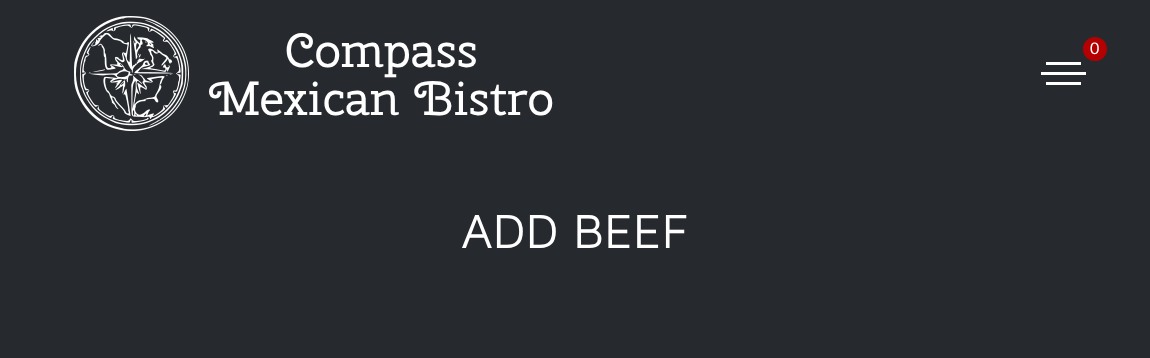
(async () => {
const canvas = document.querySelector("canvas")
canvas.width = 1150
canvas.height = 358
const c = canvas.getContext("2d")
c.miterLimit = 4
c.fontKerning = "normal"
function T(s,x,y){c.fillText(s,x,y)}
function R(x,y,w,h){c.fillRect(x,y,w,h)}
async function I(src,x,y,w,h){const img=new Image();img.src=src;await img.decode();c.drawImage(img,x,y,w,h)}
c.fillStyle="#262a2e"
R(0,0,1150,358)
await I("1.png",74,16,115,115)
c.font="48px Cherry Swash"
c.fillStyle="#fff"
T("Compass",285,67)
T("Mexican Bistro",209,115)
c.font="49.5px Maven Pro"
T("ADD BEEF",461,248)
c.fillStyle="#b40000"
c.beginPath()
c.arc(1095,49,12,0,7)
c.fill()
c.font="16px Lato"
c.fillStyle="#fff"
T("0",1090,54)
R(1046,62,35,3)
R(1041,72,45,3)
R(1046,82,35,3)
})()
